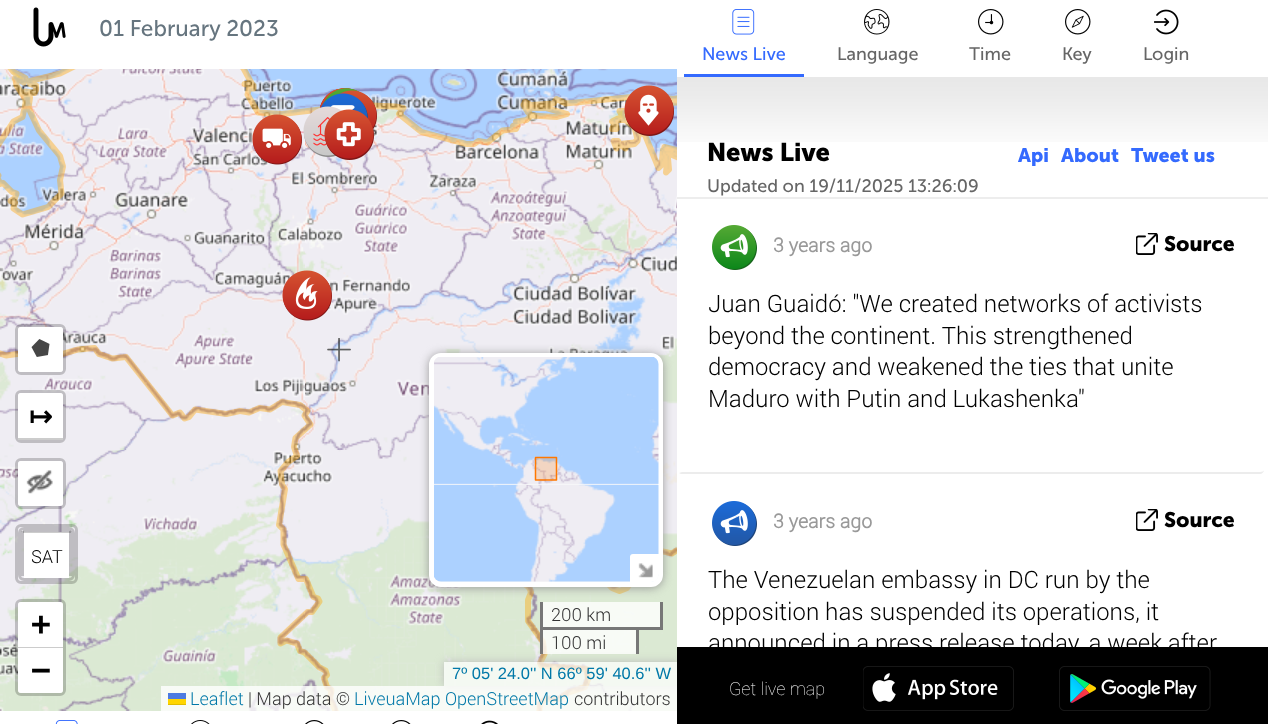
(async () => {
const canvas = document.querySelector("canvas")
canvas.width = 1268
canvas.height = 724
const c = canvas.getContext("2d")
c.miterLimit = 4
c.fontKerning = "normal"
function T(s,x,y){c.fillText(s,x,y)}
function R(x,y,w,h){c.fillRect(x,y,w,h)}
function Q(x,y,w,h,r){c.beginPath();c.roundRect(x,y,w,h,r);c.fill()}
async function I(src,x,y,w,h){const img=new Image();img.src=src;await img.decode();c.drawImage(img,x,y,w,h)}
let path
c.fillStyle="#fff"
R(0,0,1268,724)
await I("1.png",33,7,33,40)
c.font="22.5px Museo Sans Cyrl"
c.fillStyle="#66757f"
T("01 February 2023",99,36)
await I("2.png",0,69,305,381)
await I("3.png",305,69,372,381)
await I("4.png",0,450,305,261)
await I("5.png",305,450,372,261)
await I("7.png",327,338,24,24)
await I("6.png",0,69,677,642)
await I("8.png",319,88,34,21)
await I("9.png",624,85,50,51)
await I("17.png",333,88,26,4)
await I("10.png",319,88,34,21)
await I("18.png",333,88,26,4)
await I("11.png",319,88,34,21)
await I("12.png",319,88,34,21)
await I("19.png",333,88,26,4)
await I("13.png",319,88,34,21)
await I("14.png",322,88,37,18)
await I("15.png",322,88,37,18)
await I("16.png",325,88,38,14)
await I("20.png",339,90,38,40)
await I("21.png",320,93,48,26)
await I("22.png",252,114,50,51)
await I("23.png",303,106,39,51)
await I("24.png",324,109,50,51)
await I("25.png",282,270,50,51)
c.beginPath()
c.roundRect(16.5,325.5,48,48,4.5)
c.strokeStyle="#00000033"
c.lineWidth=3
c.stroke()
c.fillStyle="#fff"
Q(18,327,45,45,3)
await I("26.png",31,339,19,18)
c.beginPath()
c.roundRect(16.5,391.5,48,50,4.5)
c.stroke()
c.beginPath()
c.roundRect(18,393,45,47,[3,3,0,0])
c.fill()
c.fillStyle="#ccc"
R(18,438,45,2)
c.font="bold 28px DejaVu Sans"
c.fillStyle="#000"
T("↦",29,426)
c.beginPath()
c.roundRect(16.5,459.5,48,48,4.5)
c.stroke()
c.fillStyle="#fff"
Q(18,461,45,45,3)
await I("27.png",26,470,27,24)
c.beginPath()
c.roundRect(16.5,525.5,60,57,4.5)
c.stroke()
c.beginPath()
c.roundRect(19.5,528.5,54,51,4.5)
c.stroke()
path = new Path2D("M24 532h45v46h-45v-4z")
c.fill(path)
c.fillStyle="#00000033"
R(23,530,48,3)
R(69,531,3,45)
R(21,531,3,45)
c.font="300 18px Roboto"
c.fillStyle="#000"
T("SAT",31,563)
c.beginPath()
c.roundRect(16.5,600.5,48,94,4.5)
c.stroke()
c.fillStyle="#fff"
c.beginPath()
c.roundRect(18,602,45,46,[3,3,0,0])
c.fill()
c.fillStyle="#ccc"
R(18,647,45,1)
c.font="bold 33px DejaVu Sans Mono"
c.fillStyle="#000"
T("+",31,635)
c.fillStyle="#fff"
c.beginPath()
c.roundRect(18,648,45,45,[0,0,3,3])
c.fill()
c.fillStyle="#000"
T("−",31,681)
c.fillStyle="#999"
c.filter="blur(5px)"
c.beginPath()
c.roundRect(429,354,234,234,12)
c.fill()
c.filter="none"
c.fillStyle="#f8f8f9"
c.beginPath()
c.roundRect(431.5,355.5,229,229,9.5)
c.fill()
c.strokeStyle="#fff"
c.lineWidth=5
c.stroke()
await I("28.png",434,357,225,128)
await I("29.png",434,485,225,97)
c.fillStyle="#ff780033"
R(536,458,20,22)
path = new Path2D("M535.5 480v-22.5h21v22.5z")
c.strokeStyle="#ff7800"
c.lineWidth=1.5
c.lineCap="round"
c.lineJoin="round"
c.stroke(path)
c.fillStyle="#fff"
c.beginPath()
c.roundRect(630,554,29,28,[3,0,8,0])
c.fill()
await I("30.png",638,563,15,15)
c.fillStyle="#ffffffcc"
R(543,602,117,25)
c.fillStyle="#777"
R(660,602,3,28)
R(639,627,24,3)
R(540,602,3,28)
c.font="300 18px Roboto"
c.fillStyle="#333"
T("200 km",551,621)
c.fillStyle="#ffffffcc"
R(543,630,93,24)
c.fillStyle="#777"
R(540,627,99,3)
R(636,627,3,27)
R(540,627,3,27)
c.fillStyle="#333"
T("100 mi",551,649)
c.save()
path = new Path2D("M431 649h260v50h-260zm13 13h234v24h-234z")
c.clip(path,"evenodd")
c.fillStyle="#bbb"
c.filter="blur(4px)"
c.beginPath()
c.rect(444,662,234,24)
c.fill()
c.filter="none"
c.restore()
c.fillStyle="#ffffffb3"
R(444,662,233,24)
c.font="16.5px Liberation Sans"
c.fillStyle="#0078a8"
T("7º 05' 24.0'' N 66º 59' 40.6'' W",452,679)
c.fillStyle="#ffffffcc"
R(161,686,516,25)
c.font="300 18px Roboto"
c.fillStyle="#0078a8"
T("Leaflet",190,705)
c.fillStyle="#4c7be1"
R(168,693,18,6)
c.fillStyle="#ffd500"
R(168,699,18,5)
c.fillStyle="#e0bc00"
R(168,704,18,1)
c.fillStyle="#333"
T("| Map data ©",248,705)
c.fillStyle="#0078a8"
T("LiveuaMap OpenStreetMap",354,705)
c.fillStyle="#333"
T("contributors",574,705)
c.fillStyle="#346afe"
R(684,74,120,3)
await I("31.png",732,9,23,26)
c.font="18px Museo Sans Cyrl"
T("News Live",702,60)
await I("32.png",864,9,26,26)
c.fillStyle="#666"
T("Language",837,60)
await I("33.png",978,9,26,26)
T("Time",969,60)
await I("34.png",1065,9,26,26)
T("Key",1062,60)
await I("35.png",1154,9,25,26)
T("Login",1143,60)
await I("36.png",677,77,591,65)
c.fillStyle="#ededed"
R(677,197,591,2)
c.font="bold 25.5px Museo Sans Cyrl"
c.fillStyle="#000"
T("News Live",707,161)
c.font="18px Museo Sans Cyrl"
c.fillStyle="#666"
T("Updated on 19/11/2025 13:26:09",707,192)
c.font="bold 19.5px Museo Sans Cyrl"
c.fillStyle="#346afe"
T("Api",1018,162)
T("About",1061,162)
T("Tweet us",1131,162)
c.fillStyle="#ececec"
path = new Path2D("M1260 474c2 0 4-2 4-4c0 1-2 2-4 2h-578l-3 1l2 1z")
c.fill(path)
await I("37.png",712,225,45,45)
c.font="bold 19.5px Roboto"
c.fillStyle="#999"
T("3 years ago",773,252)
await I("38.png",1136,233,22,22)
c.font="bold 21px Museo Sans Cyrl"
c.fillStyle="#000"
T("Source",1164,251)
c.font="300 24px Roboto"
T("Juan Guaidó: \"We created networks of activists",708,312)
T("beyond the continent. This strengthened",708,344)
T("democracy and weakened the ties that unite",708,375)
T("Maduro with Putin and Lukashenka\"",708,407)
await I("39.png",712,501,45,45)
c.font="bold 19.5px Roboto"
c.fillStyle="#999"
T("3 years ago",773,528)
await I("38.png",1136,509,22,22)
c.font="bold 21px Museo Sans Cyrl"
c.fillStyle="#000"
T("Source",1164,527)
c.font="300 24px Roboto"
T("The Venezuelan embassy in DC run by the",708,588)
T("opposition has suspended its operations, it",708,620)
T("announced in a press release today, a week after",708,651)
R(677,647,591,77)
c.font="100 18px Roboto"
c.fillStyle="#fff"
T("Get live map",729,695)
await I("40.png",863,666,151,45)
await I("41.png",1059,666,152,45)
await I("42.png",55,720,23,4)
await I("43.png",191,720,19,4)
await I("44.png",305,720,19,4)
await I("45.png",392,720,19,4)
await I("46.png",481,720,17,4)
})()
